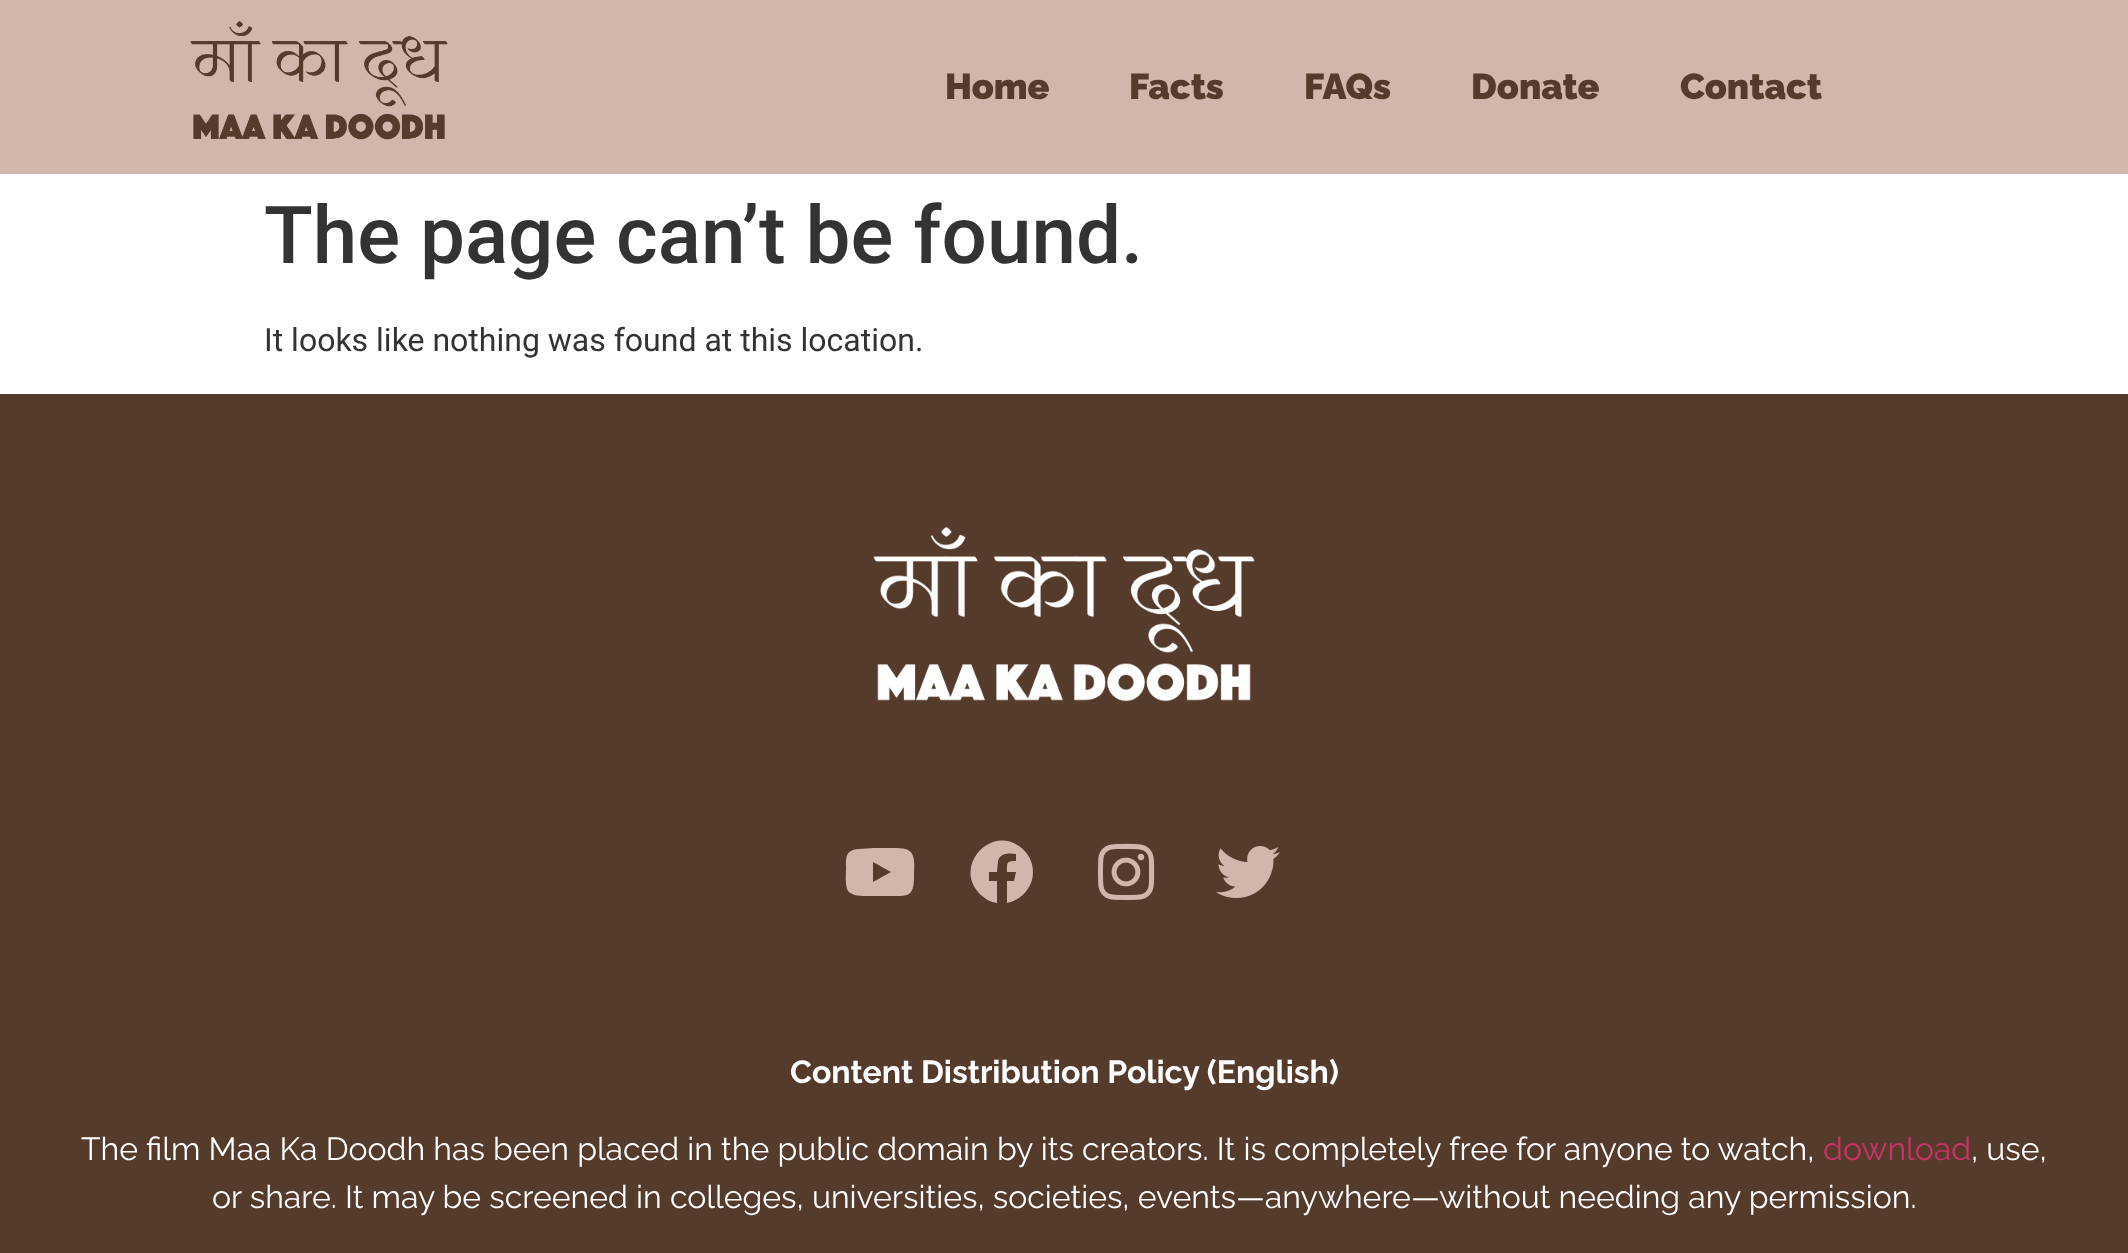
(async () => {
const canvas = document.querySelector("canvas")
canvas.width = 2128
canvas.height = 1253
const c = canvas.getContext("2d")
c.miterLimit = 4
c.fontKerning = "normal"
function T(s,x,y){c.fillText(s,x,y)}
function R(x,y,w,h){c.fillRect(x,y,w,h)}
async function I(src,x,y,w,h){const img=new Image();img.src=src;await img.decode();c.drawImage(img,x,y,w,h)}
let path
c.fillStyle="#fff"
R(0,0,2128,1253)
c.fillStyle="#d0b6ab"
R(0,0,2128,174)
await I("1.png",190,21,258,119)
c.font="900 36px Raleway"
c.fillStyle="#553b2c"
T("Home",945,99)
T("Facts",1129,99)
T("FAQs",1304,99)
T("Donate",1471,99)
T("Contact",1680,99)
c.font="500 80px Roboto"
c.fillStyle="#333"
T("The page can’t be found.",264,263)
c.font="32px Roboto"
T("It looks like nothing was found at this location.",264,351)
c.fillStyle="#553b2c"
R(0,394,2128,859)
await I("2.png",873,526,382,176)
c.fillStyle="#d0b6ab"
path = new Path2D("M913 856c2 6 1 14 1 21c0 21-7 19-26 19h-17c-7 0-21 1-24-7c-2-7-1-15-1-22c0-11 0-17 13-18l15-1h20c7 0 17 0 19 8zm-40 26l18-10l-18-10z")
c.fill(path)
path = new Path2D("M1033 872c0 15-11 28-26 31v-22h7l2-9h-9c0-9-1-11 9-11v-7c-7-1-16-1-18 7l-1 11h-8v9h8v22c-7-1-14-5-19-11c-23-27 12-66 41-46c9 6 14 16 14 26z")
c.fill(path)
await I("3.png",1098,843,57,57)
await I("4.png",1216,846,64,52)
c.font="bold 32px Raleway"
c.fillStyle="#fff"
T("Content Distribution Policy (English)",790,1083)
c.font="32px Raleway"
T("The film Maa Ka Doodh has been placed in the public domain by its creators. It is completely free for anyone to watch,",81,1160)
c.fillStyle="#c36"
T("download",1823,1160)
c.fillStyle="#fff"
T(", use,",1971,1160)
T("or share. It may be screened in colleges, universities, societies, events—anywhere—without needing any permission.",212,1208)
})()
